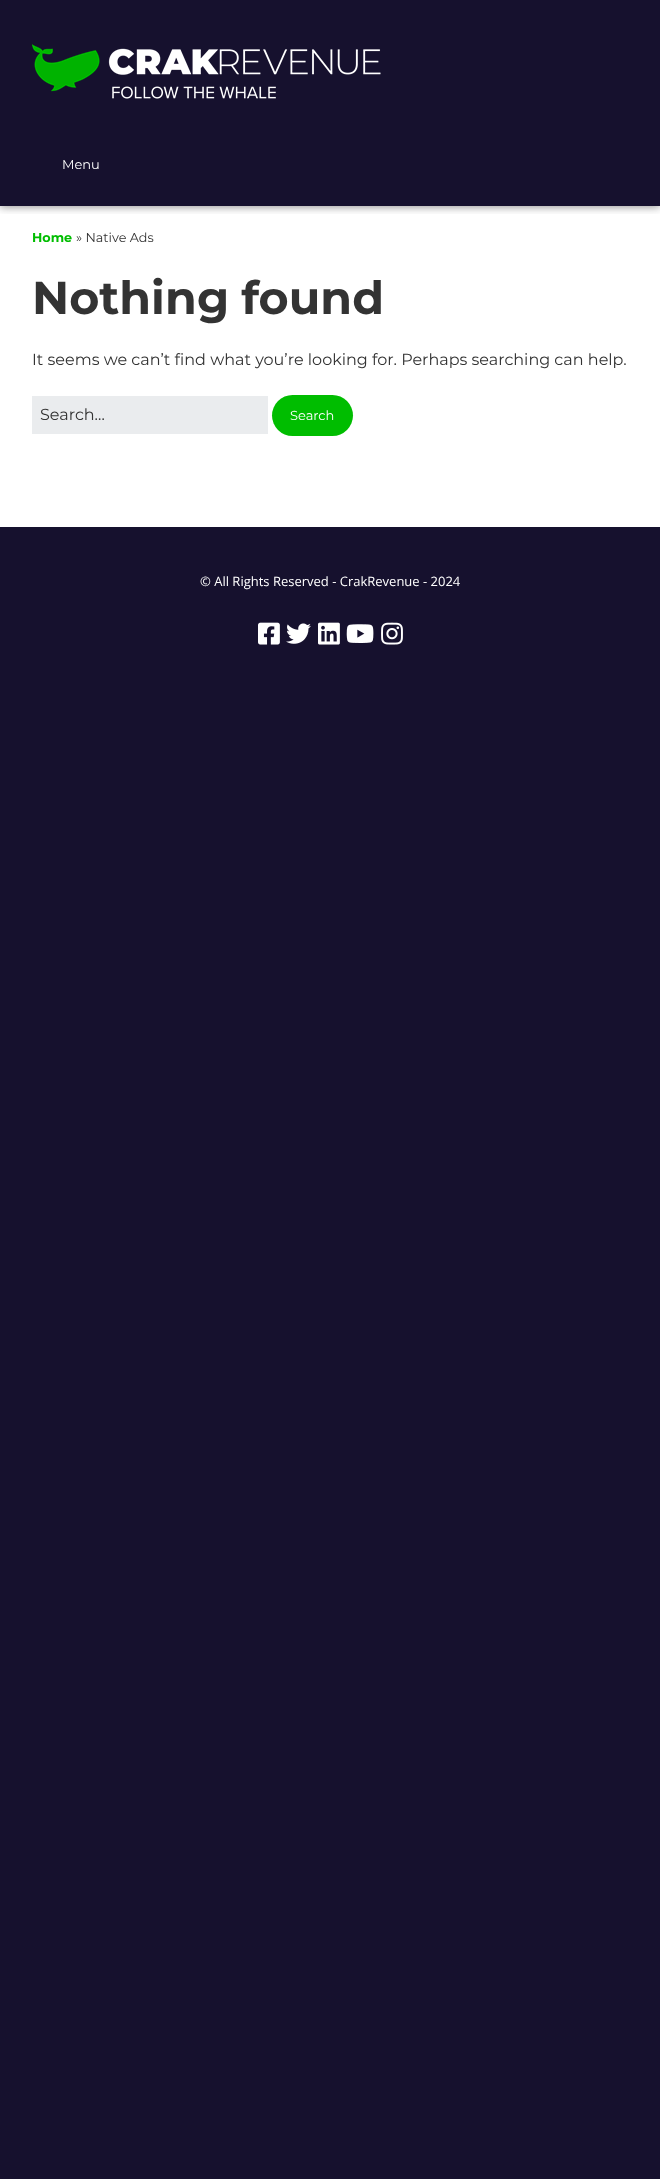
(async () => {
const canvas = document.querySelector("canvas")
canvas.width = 660
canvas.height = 2179
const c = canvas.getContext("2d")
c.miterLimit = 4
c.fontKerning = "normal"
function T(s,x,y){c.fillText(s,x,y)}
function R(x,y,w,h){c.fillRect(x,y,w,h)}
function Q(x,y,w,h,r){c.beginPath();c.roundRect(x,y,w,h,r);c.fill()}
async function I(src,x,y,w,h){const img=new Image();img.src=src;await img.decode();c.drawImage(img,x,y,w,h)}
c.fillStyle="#16112e"
R(0,0,660,2179)
c.fillStyle="#fff"
R(0,206,660,321)
c.save()
c.beginPath()
c.rect(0,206,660,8)
c.clip()
c.fillStyle="#27272780"
c.filter="blur(4px)"
c.beginPath()
c.rect(0,1,660,206)
c.fill()
c.filter="none"
c.restore()
await I("1.png",32,44,349,55)
c.font="13px Montserrat"
T("Menu",62,169)
c.font="bold 12.75px Montserrat"
c.fillStyle="#00bd00"
T("Home",32,242)
c.font="12.75px Montserrat"
c.fillStyle="#333"
T("» Native Ads",76,242)
c.wordSpacing="-1px"
c.font="bold 46px Montserrat"
T("Nothing found",32,314)
c.wordSpacing="0px"
c.font="16px Montserrat"
T("It seems we can’t find what you’re looking for. Perhaps searching can help.",32,365)
c.fillStyle="#eaecee"
R(32,396,236,38)
c.fillStyle="#333"
T("Search…",40,420)
c.fillStyle="#00bd00"
Q(272,395,81,41,20.5)
c.font="13px Montserrat"
c.fillStyle="#fff"
T("Search",290,420)
c.font="13px Open Sans"
T("© All Rights Reserved - CrakRevenue - 2024",200,586)
await I("2.png",258,622,22,23)
await I("3.png",286,623,25,21)
await I("4.png",318,622,22,23)
await I("5.png",346,624,28,19)
await I("6.png",381,622,22,23)
})()
